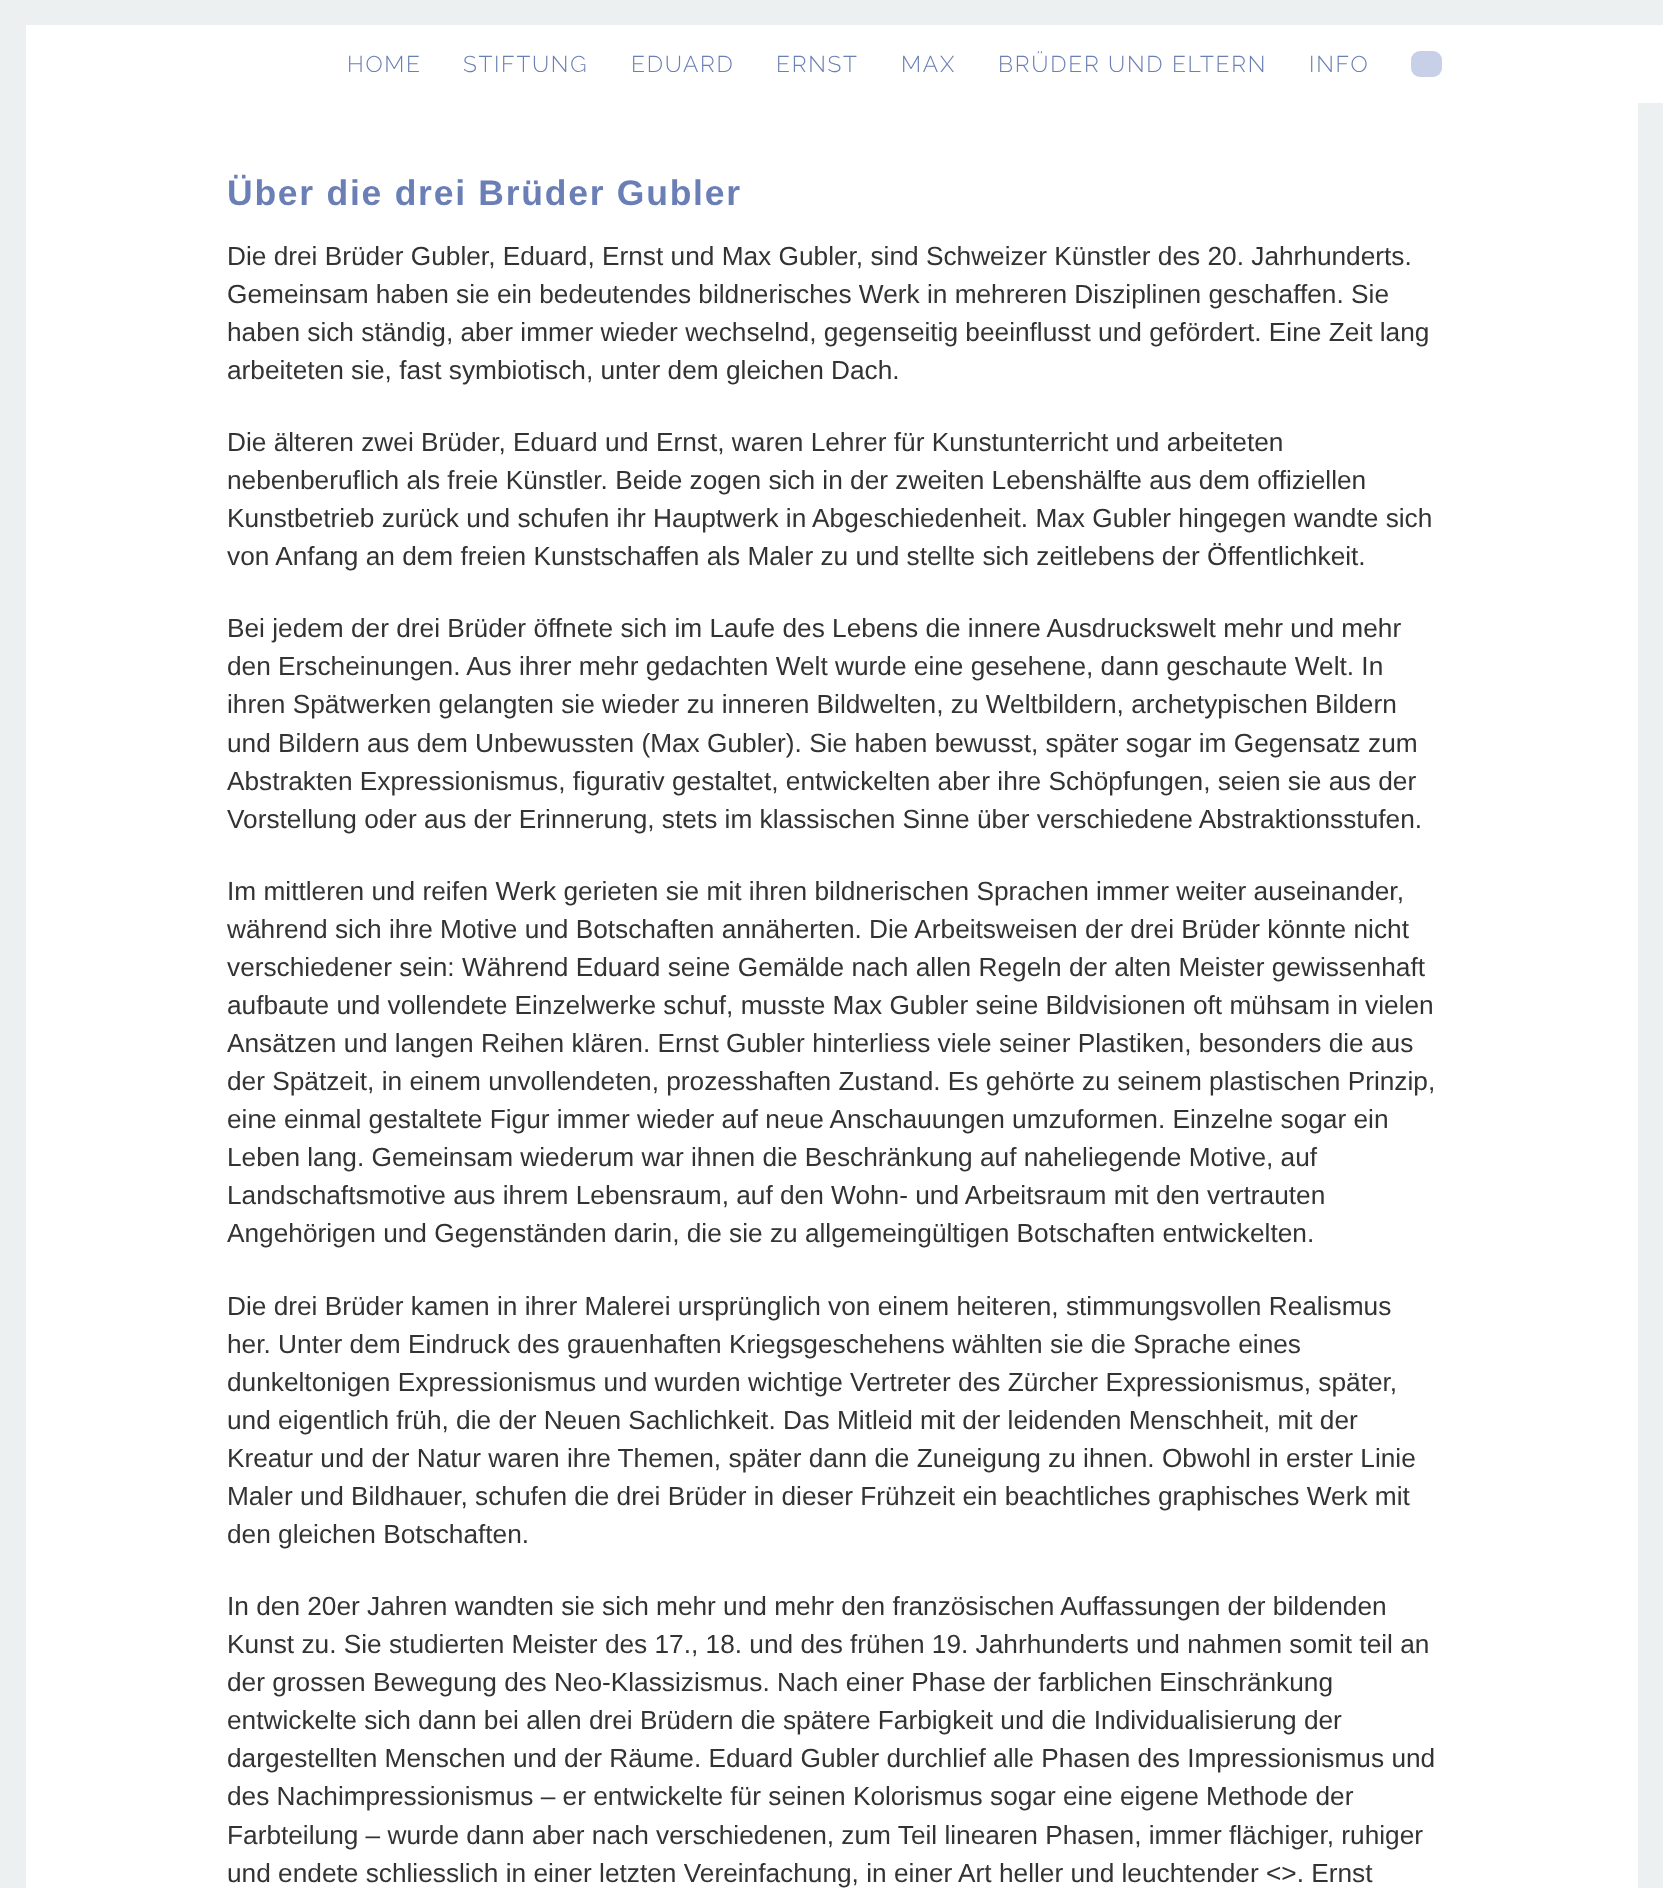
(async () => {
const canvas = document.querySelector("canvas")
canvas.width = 1663
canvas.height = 1888
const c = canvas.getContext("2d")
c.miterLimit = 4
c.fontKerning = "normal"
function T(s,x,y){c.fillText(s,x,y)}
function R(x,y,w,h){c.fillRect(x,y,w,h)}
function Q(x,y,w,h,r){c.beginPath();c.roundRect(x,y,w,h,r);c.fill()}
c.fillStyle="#ecf0f1"
R(0,0,1663,1888)
c.fillStyle="#fff"
R(26,103,1612,1785)
R(26,25,1637,78)
c.letterSpacing="1.75px"
c.font="300 22.75px Raleway"
c.fillStyle="#6a7fb6"
T("HOME",347,72)
T("STIFTUNG",463,72)
T("EDUARD",631,72)
T("ERNST",776,72)
T("MAX",901,72)
T("BRÜDER UND ELTERN",998,72)
T("INFO",1309,72)
c.fillStyle="#c8d0e7"
Q(1411,51,31,26,9)
c.font="bold 35.5px Liberation Sans"
c.fillStyle="#6a7fb6"
T("Über die drei Brüder Gubler",227,205)
c.letterSpacing="0px"
c.font="26.25px Liberation Sans"
c.fillStyle="#333"
T("Die drei Brüder Gubler, Eduard, Ernst und Max Gubler, sind Schweizer Künstler des 20. Jahrhunderts.",227,265)
T("Gemeinsam haben sie ein bedeutendes bildnerisches Werk in mehreren Disziplinen geschaffen. Sie",227,303)
T("haben sich ständig, aber immer wieder wechselnd, gegenseitig beeinflusst und gefördert. Eine Zeit lang",227,341)
T("arbeiteten sie, fast symbiotisch, unter dem gleichen Dach.",227,379)
T("Die älteren zwei Brüder, Eduard und Ernst, waren Lehrer für Kunstunterricht und arbeiteten",227,451)
T("nebenberuflich als freie Künstler. Beide zogen sich in der zweiten Lebenshälfte aus dem offiziellen",227,489)
T("Kunstbetrieb zurück und schufen ihr Hauptwerk in Abgeschiedenheit. Max Gubler hingegen wandte sich",227,527)
T("von Anfang an dem freien Kunstschaffen als Maler zu und stellte sich zeitlebens der Öffentlichkeit.",227,565)
T("Bei jedem der drei Brüder öffnete sich im Laufe des Lebens die innere Ausdruckswelt mehr und mehr",227,637)
T("den Erscheinungen. Aus ihrer mehr gedachten Welt wurde eine gesehene, dann geschaute Welt. In",227,675)
T("ihren Spätwerken gelangten sie wieder zu inneren Bildwelten, zu Weltbildern, archetypischen Bildern",227,713)
T("und Bildern aus dem Unbewussten (Max Gubler). Sie haben bewusst, später sogar im Gegensatz zum",227,752)
T("Abstrakten Expressionismus, figurativ gestaltet, entwickelten aber ihre Schöpfungen, seien sie aus der",227,790)
T("Vorstellung oder aus der Erinnerung, stets im klassischen Sinne über verschiedene Abstraktionsstufen.",227,828)
T("Im mittleren und reifen Werk gerieten sie mit ihren bildnerischen Sprachen immer weiter auseinander,",227,900)
T("während sich ihre Motive und Botschaften annäherten. Die Arbeitsweisen der drei Brüder könnte nicht",227,938)
T("verschiedener sein: Während Eduard seine Gemälde nach allen Regeln der alten Meister gewissenhaft",227,976)
T("aufbaute und vollendete Einzelwerke schuf, musste Max Gubler seine Bildvisionen oft mühsam in vielen",227,1014)
T("Ansätzen und langen Reihen klären. Ernst Gubler hinterliess viele seiner Plastiken, besonders die aus",227,1052)
T("der Spätzeit, in einem unvollendeten, prozesshaften Zustand. Es gehörte zu seinem plastischen Prinzip,",227,1090)
T("eine einmal gestaltete Figur immer wieder auf neue Anschauungen umzuformen. Einzelne sogar ein",227,1128)
T("Leben lang. Gemeinsam wiederum war ihnen die Beschränkung auf naheliegende Motive, auf",227,1166)
T("Landschaftsmotive aus ihrem Lebensraum, auf den Wohn- und Arbeitsraum mit den vertrauten",227,1204)
T("Angehörigen und Gegenständen darin, die sie zu allgemeingültigen Botschaften entwickelten.",227,1242)
T("Die drei Brüder kamen in ihrer Malerei ursprünglich von einem heiteren, stimmungsvollen Realismus",227,1315)
T("her. Unter dem Eindruck des grauenhaften Kriegsgeschehens wählten sie die Sprache eines",227,1353)
T("dunkeltonigen Expressionismus und wurden wichtige Vertreter des Zürcher Expressionismus, später,",227,1391)
T("und eigentlich früh, die der Neuen Sachlichkeit. Das Mitleid mit der leidenden Menschheit, mit der",227,1429)
T("Kreatur und der Natur waren ihre Themen, später dann die Zuneigung zu ihnen. Obwohl in erster Linie",227,1467)
T("Maler und Bildhauer, schufen die drei Brüder in dieser Frühzeit ein beachtliches graphisches Werk mit",227,1505)
T("den gleichen Botschaften.",227,1543)
T("In den 20er Jahren wandten sie sich mehr und mehr den französischen Auffassungen der bildenden",227,1615)
T("Kunst zu. Sie studierten Meister des 17., 18. und des frühen 19. Jahrhunderts und nahmen somit teil an",227,1653)
T("der grossen Bewegung des Neo-Klassizismus. Nach einer Phase der farblichen Einschränkung",227,1691)
T("entwickelte sich dann bei allen drei Brüdern die spätere Farbigkeit und die Individualisierung der",227,1729)
T("dargestellten Menschen und der Räume. Eduard Gubler durchlief alle Phasen des Impressionismus und",227,1767)
T("des Nachimpressionismus – er entwickelte für seinen Kolorismus sogar eine eigene Methode der",227,1805)
T("Farbteilung – wurde dann aber nach verschiedenen, zum Teil linearen Phasen, immer flächiger, ruhiger",227,1844)
T("und endete schliesslich in einer letzten Vereinfachung, in einer Art heller und leuchtender <>. Ernst",227,1882)
})()
